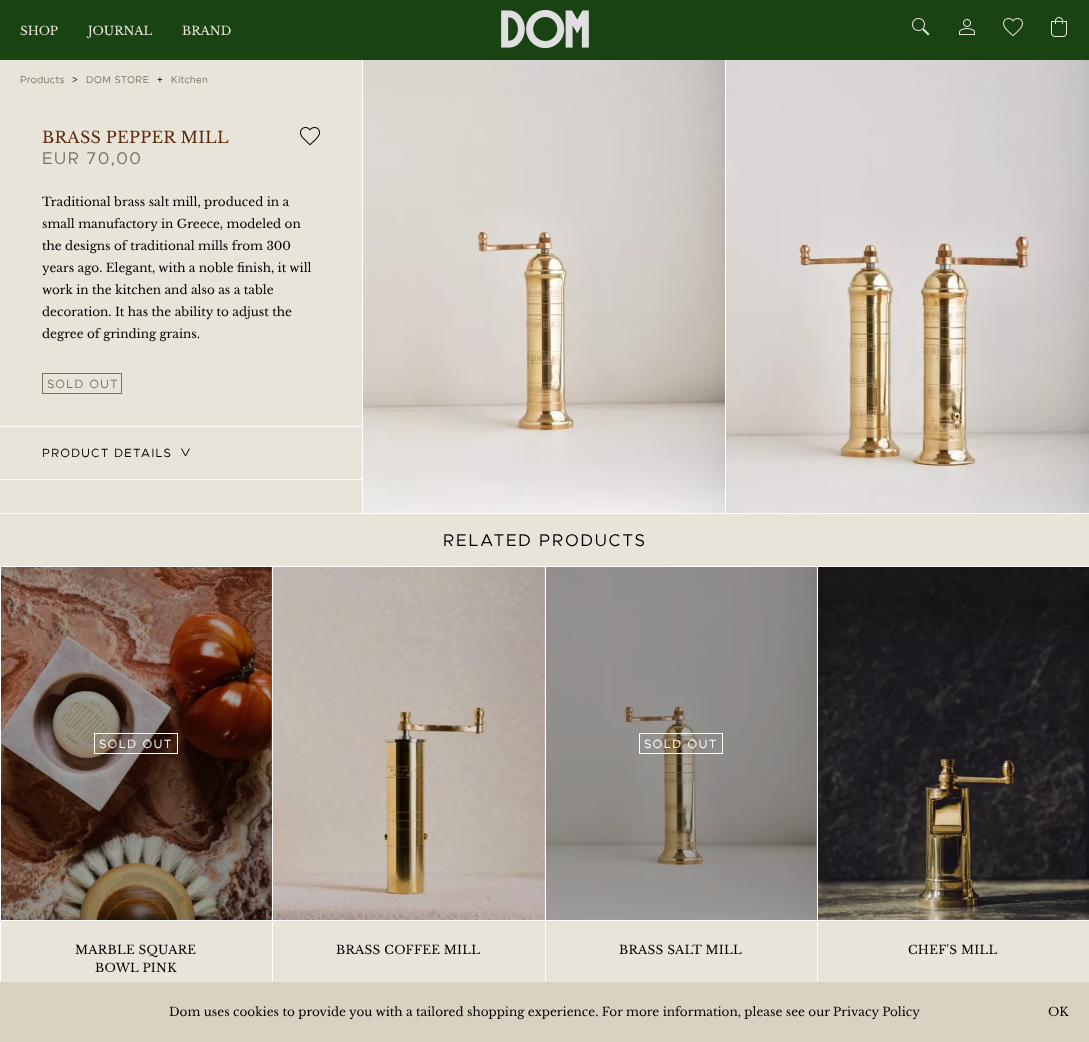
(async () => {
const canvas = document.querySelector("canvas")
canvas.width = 1089
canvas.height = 1042
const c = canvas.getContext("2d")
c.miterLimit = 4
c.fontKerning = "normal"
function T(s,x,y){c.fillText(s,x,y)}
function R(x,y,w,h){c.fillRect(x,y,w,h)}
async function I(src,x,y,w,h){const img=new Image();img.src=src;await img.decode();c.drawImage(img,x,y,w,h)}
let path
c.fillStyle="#e8e4da"
R(0,0,1089,1042)
c.fillStyle="#fff"
R(0,513,1089,1)
R(362,59,1,455)
R(725,59,1,455)
c.fillStyle="#1a4314"
R(0,0,1089,60)
c.font="12px Libre Baskerville"
c.fillStyle="#e8e4da"
T("SHOP",20,35)
T("JOURNAL",88,35)
T("BRAND",182,35)
await I("1.png",912,18,18,18)
await I("2.png",959,19,16,16)
await I("3.png",1003,18,20,19)
await I("4.png",1051,17,16,20)
await I("5.png",501,10,88,38)
c.letterSpacing="0.5px"
c.font="10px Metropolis"
c.fillStyle="#7c7264"
T("Products",20,83)
c.fillStyle="#000"
T(">",72,83)
c.fillStyle="#7c7264"
T("DOM STORE",86,83)
c.fillStyle="#000"
T("+",157,83)
c.fillStyle="#7c7264"
T("Kitchen",171,83)
c.letterSpacing="0.25px"
c.font="16px Libre Baskerville"
c.fillStyle="#5e2b0c"
T("BRASS PEPPER MILL",42,143)
await I("6.png",300,127,20,19)
c.letterSpacing="1.5px"
c.font="17px Metropolis"
c.fillStyle="#7c7264"
T("EUR 70,00",42,164)
c.letterSpacing="0px"
c.font="12px Libre Baskerville"
c.fillStyle="#000"
T("Traditional brass salt mill, produced in a",42,206)
T("small manufactory in Greece, modeled on",42,228)
T("the designs of traditional mills from 300",42,250)
T("years ago. Elegant, with a noble finish, it will",42,272)
T("work in the kitchen and also as a table",42,294)
T("decoration. It has the ability to adjust the",42,316)
T("degree of grinding grains.",42,338)
c.strokeStyle="#7c7264"
c.strokeRect(42.5,373.5,79,20)
c.letterSpacing="1.25px"
c.font="12px Metropolis"
c.fillStyle="#7c7264"
T("SOLD OUT",47,388)
c.fillStyle="#fff"
R(0,426,362,1)
R(0,479,362,1)
c.fillStyle="#000"
T("PRODUCT DETAILS",42,457)
path = new Path2D("M181.5 448.5l4 7.5l4-7.5")
c.strokeStyle="#000"
c.stroke(path)
await I("7.png",363,60,362,453)
await I("8.png",726,60,363,453)
c.letterSpacing="1.75px"
c.font="17px Metropolis"
T("RELATED PRODUCTS",443,546)
c.fillStyle="#fff"
R(0,566,1089,1)
R(0,567,1,415)
c.fillStyle="#795846"
R(271,567,1,353)
await I("9.png",1,567,271,353)
c.strokeStyle="#fff"
c.strokeRect(94.5,733.5,83,20)
c.letterSpacing="1.5px"
c.font="12px Metropolis"
c.fillStyle="#fff"
T("SOLD OUT",99,748)
R(272,567,1,415)
R(1,920,271,1)
c.letterSpacing="0.25px"
c.font="12px Libre Baskerville"
c.fillStyle="#000"
T("MARBLE SQUARE",75,954)
T("BOWL PINK",95,972)
await I("10.png",273,567,272,353)
c.fillStyle="#fff"
R(545,567,1,415)
R(273,920,272,1)
c.fillStyle="#000"
T("BRASS COFFEE MILL",336,954)
c.fillStyle="#8f8c89"
R(816,567,1,353)
await I("11.png",546,567,271,353)
c.strokeRect(639.5,733.5,83,20)
c.letterSpacing="1.5px"
c.font="12px Metropolis"
c.fillStyle="#fff"
T("SOLD OUT",644,748)
R(817,567,1,415)
R(546,920,271,1)
c.letterSpacing="0.25px"
c.font="12px Libre Baskerville"
c.fillStyle="#000"
T("BRASS SALT MILL",619,954)
await I("12.png",818,567,271,353)
c.fillStyle="#fff"
R(818,920,271,1)
c.fillStyle="#000"
T("CHEF'S MILL",908,954)
c.fillStyle="#d9d2c2"
R(0,982,1089,60)
c.letterSpacing="0px"
c.fillStyle="#000"
T("Dom uses cookies to provide you with a tailored shopping experience. For more information, please see our Privacy Policy",169,1016)
T("OK",1048,1016)
})()
